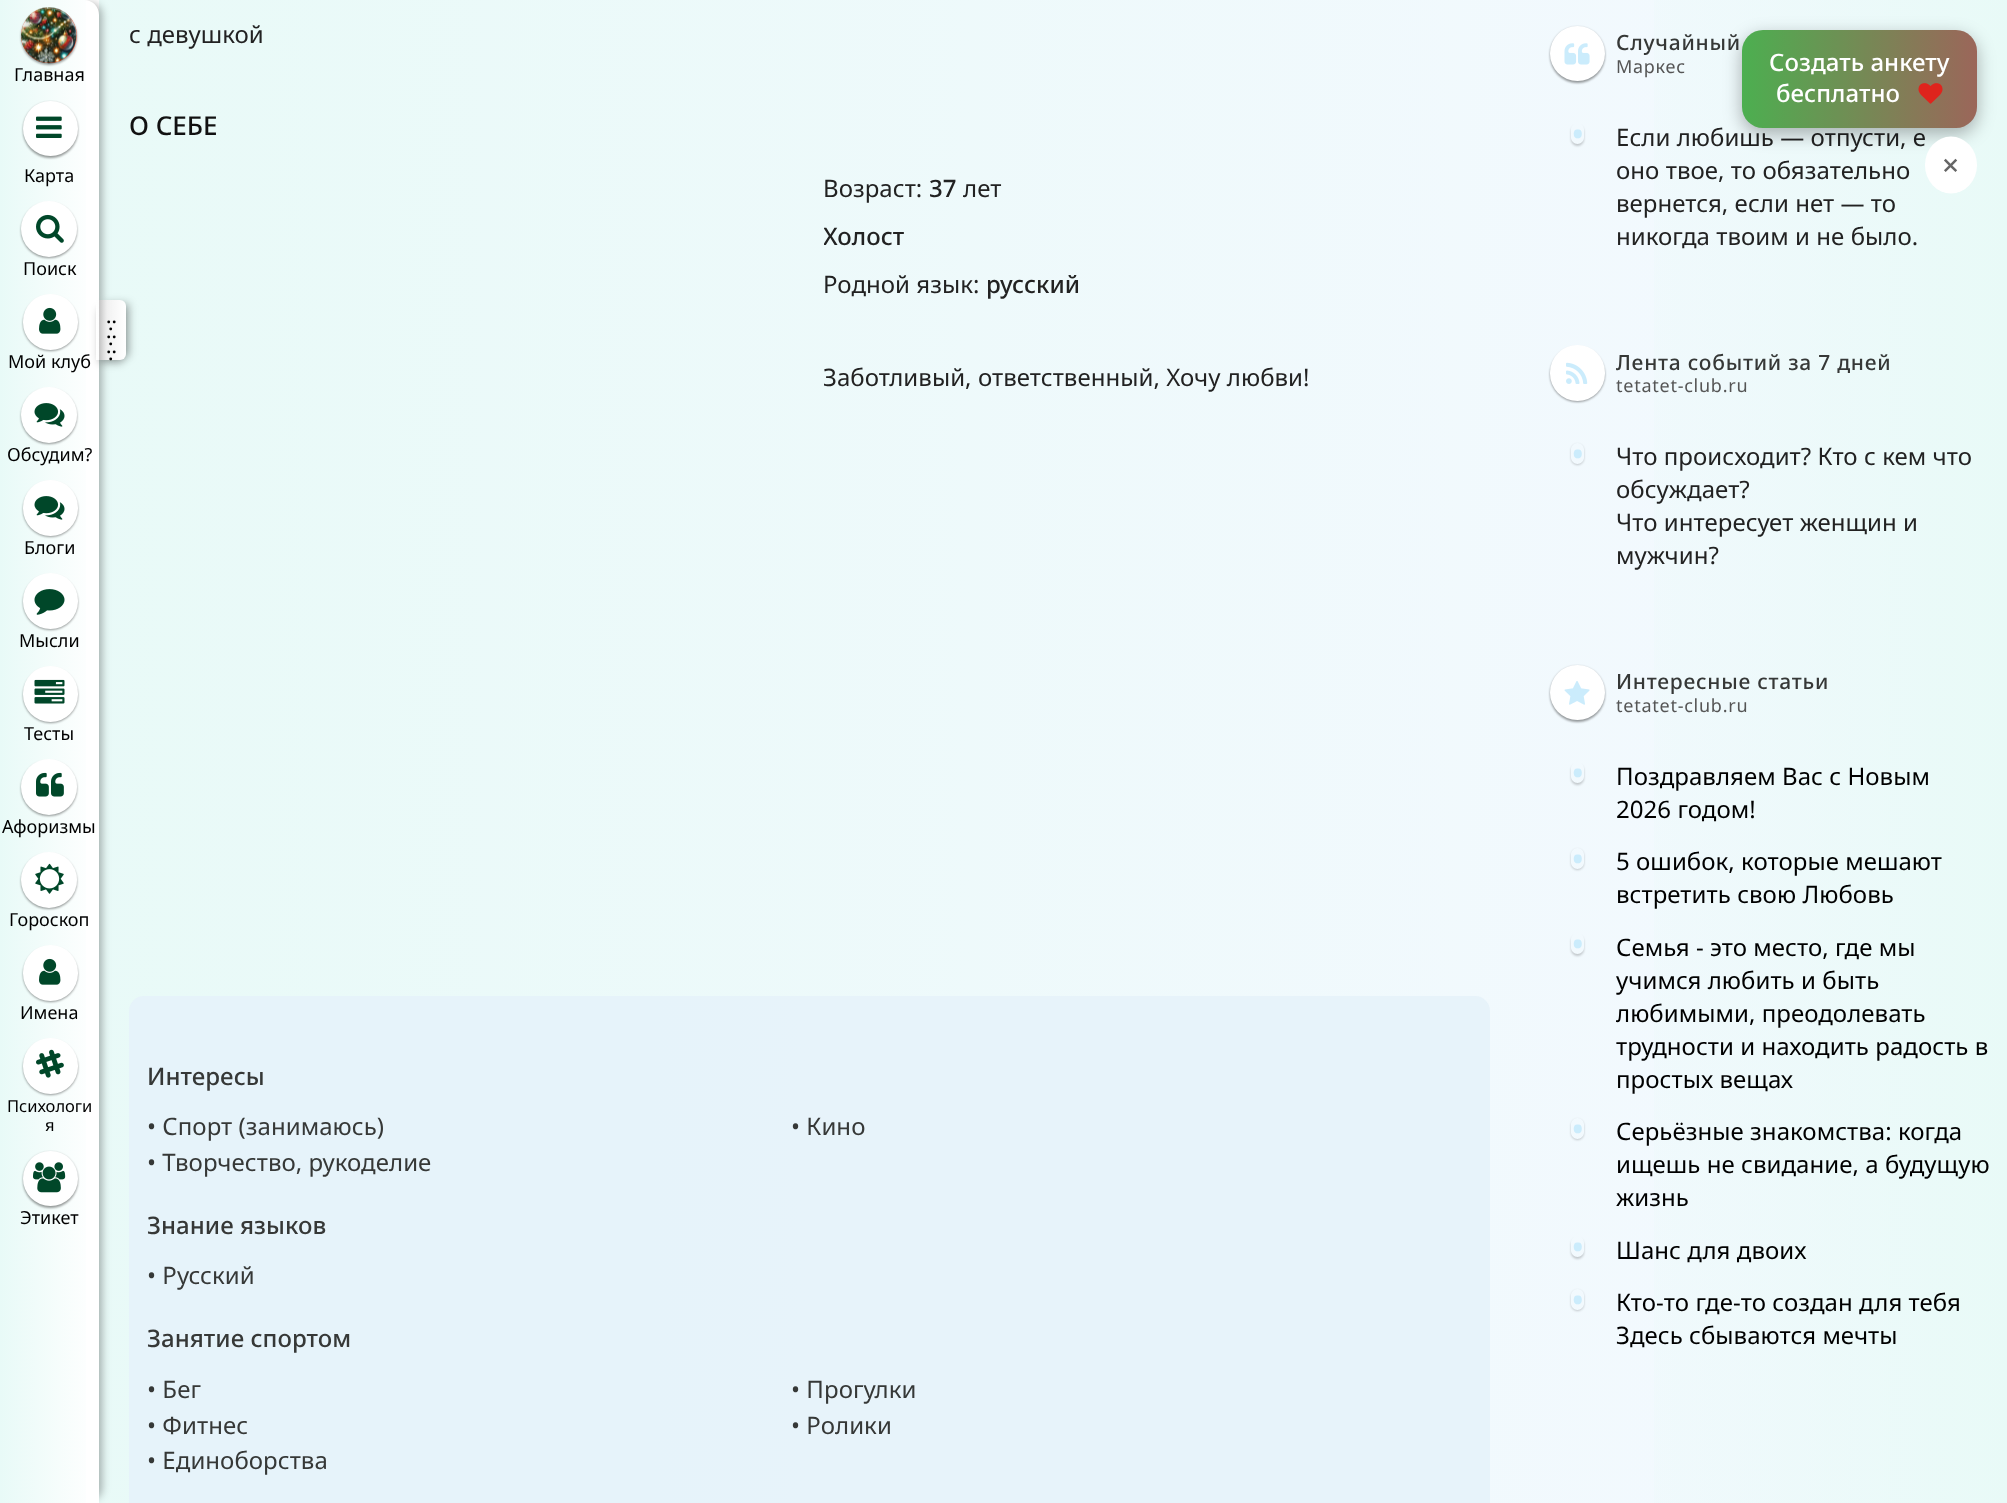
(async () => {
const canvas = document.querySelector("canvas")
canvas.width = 2007
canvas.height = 1503
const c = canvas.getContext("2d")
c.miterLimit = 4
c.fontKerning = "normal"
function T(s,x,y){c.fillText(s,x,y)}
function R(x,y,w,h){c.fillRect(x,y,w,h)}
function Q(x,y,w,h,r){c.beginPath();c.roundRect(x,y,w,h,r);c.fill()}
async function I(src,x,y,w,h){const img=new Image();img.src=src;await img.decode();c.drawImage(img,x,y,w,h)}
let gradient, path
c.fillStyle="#fff"
R(0,0,2007,1503)
gradient = c.createLinearGradient(2007,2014,0,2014)
gradient.addColorStop(0,"#fff")
gradient.addColorStop(.03,"#f4f9ff")
gradient.addColorStop(1,"#e8faf7")
c.fillStyle = gradient
R(99,0,1894,1503)
c.letterSpacing="0.05px"
c.font="24px Noto Sans"
c.fillStyle="#222"
T("с девушкой",129,43)
c.letterSpacing="0px"
c.font="500 26px Noto Sans"
c.fillStyle="#111"
T("О СЕБЕ",129,135)
c.letterSpacing="0.05px"
c.font="24px Noto Sans"
c.fillStyle="#222"
T("Возраст:",823,197)
c.font="500 24px Noto Sans"
T("37",929,197)
c.font="24px Noto Sans"
T("лет",963,197)
c.save()
c.beginPath()
c.rect(824,171,666,282)
c.clip()
c.font="500 24px Noto Sans"
T("Холост",823,245)
c.restore()
T("Родной язык:",823,293)
c.font="500 24px Noto Sans"
T("русский",986,293)
c.save()
c.beginPath()
c.rect(824,171,666,282)
c.clip()
c.font="24px Noto Sans"
T("Заботливый, ответственный, Хочу любви!",823,386)
c.restore()
c.fillStyle="#e6f2fae6"
Q(129,996,1361,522,15)
c.fillStyle="#363837"
T("Интересы",147,1085)
c.font="24px Noto Sans"
T("• Спорт (занимаюсь)",147,1135)
T("• Кино",791,1135)
T("• Творчество, рукоделие",147,1171)
c.font="500 24px Noto Sans"
T("Знание языков",147,1234)
c.font="24px Noto Sans"
T("• Русский",147,1284)
c.font="500 24px Noto Sans"
T("Занятие спортом",147,1347)
c.font="24px Noto Sans"
T("• Бег",147,1398)
T("• Прогулки",791,1398)
T("• Фитнес",147,1434)
T("• Ролики",791,1434)
T("• Единоборства",147,1469)
gradient = c.createLinearGradient(1520,752,2007,752)
gradient.addColorStop(0,"#00000000")
gradient.addColorStop(.07,"#e8faf700")
gradient.addColorStop(1,"#e8faf7")
c.fillStyle = gradient
R(1654,0,353,1503)
c.fillStyle="#00000066"
c.filter="blur(1px)"
c.beginPath()
c.roundRect(1550,27,55,56,27.5)
c.fill()
c.filter="none"
c.fillStyle="#fff"
c.beginPath()
c.arc(1577.5,53.5,27.5,0,7)
c.fill()
await I("1.png",1564,43,26,22)
c.letterSpacing="0.75px"
c.font="500 21px Noto Sans"
c.fillStyle="#363837"
T("Случайный",1616,50)
c.font="18px Noto Sans"
c.fillStyle="#555"
T("Маркес",1616,73)
c.save()
path = new Path2D("M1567 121h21v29h-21zm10.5 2c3.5 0 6.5 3 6.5 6.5v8c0 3.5-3 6.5-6.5 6.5c-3.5 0-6.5-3-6.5-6.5v-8c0-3.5 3-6.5 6.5-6.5z")
c.clip(path,"evenodd")
c.fillStyle="#00000033"
c.filter="blur(1px)"
c.beginPath()
c.roundRect(1571,125,13,21,6.5)
c.fill()
c.filter="none"
c.restore()
c.letterSpacing="0.05px"
c.font="36px Noto Sans"
c.fillStyle="#cbecfc"
T("•",1571,147)
c.font="24px Noto Sans"
c.fillStyle="#222"
T("Если любишь — отпусти, е",1616,146)
T("оно твое, то обязательно",1616,179)
T("вернется, если нет — то",1616,212)
T("никогда твоим и не было.",1616,245)
c.fillStyle="#00000066"
c.filter="blur(1px)"
c.beginPath()
c.roundRect(1550,347,55,55,27.5)
c.fill()
c.filter="none"
c.fillStyle="#fff"
Q(1550,345,55,56,27.5)
await I("2.png",1566,362,22,22)
c.letterSpacing="0.75px"
c.font="500 21px Noto Sans"
c.fillStyle="#363837"
T("Лента событий за 7 дней",1616,370)
c.font="18px Noto Sans"
c.fillStyle="#555"
T("tetatet-club.ru",1616,392)
c.save()
path = new Path2D("M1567 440h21v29h-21zm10.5 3c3.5 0 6.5 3 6.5 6.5v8c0 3.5-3 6.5-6.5 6.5c-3.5 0-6.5-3-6.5-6.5v-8c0-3.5 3-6.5 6.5-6.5z")
c.clip(path,"evenodd")
c.fillStyle="#00000033"
c.filter="blur(1px)"
c.beginPath()
c.roundRect(1571,444,13,21,6.5)
c.fill()
c.filter="none"
c.restore()
c.letterSpacing="0.05px"
c.font="36px Noto Sans"
c.fillStyle="#cbecfc"
T("•",1571,467)
c.font="24px Noto Sans"
c.fillStyle="#222"
T("Что происходит? Кто с кем что",1616,465)
T("обсуждает?",1616,498)
T("Что интересует женщин и",1616,531)
T("мужчин?",1616,564)
c.fillStyle="#00000066"
c.filter="blur(1px)"
c.beginPath()
c.roundRect(1550,666,55,56,27.5)
c.fill()
c.filter="none"
c.fillStyle="#fff"
c.beginPath()
c.arc(1577.5,692.5,27.5,0,7)
c.fill()
await I("3.png",1564,681,26,24)
c.letterSpacing="0.75px"
c.font="500 21px Noto Sans"
c.fillStyle="#363837"
T("Интересные статьи",1616,689)
c.font="18px Noto Sans"
c.fillStyle="#555"
T("tetatet-club.ru",1616,712)
c.save()
path = new Path2D("M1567 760h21v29h-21zm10.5 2c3.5 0 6.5 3 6.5 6.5v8c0 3.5-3 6.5-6.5 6.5c-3.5 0-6.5-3-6.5-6.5v-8c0-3.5 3-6.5 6.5-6.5z")
c.clip(path,"evenodd")
c.fillStyle="#00000033"
c.filter="blur(1px)"
c.beginPath()
c.roundRect(1571,764,13,21,6.5)
c.fill()
c.filter="none"
c.restore()
c.letterSpacing="0.05px"
c.font="36px Noto Sans"
c.fillStyle="#cbecfc"
T("•",1571,786)
c.font="24px Noto Sans"
c.fillStyle="#000"
T("Поздравляем Вас с Новым",1616,785)
T("2026 годом!",1616,818)
c.save()
path = new Path2D("M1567 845h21v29h-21zm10.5 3c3.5 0 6.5 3 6.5 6.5v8c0 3.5-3 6.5-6.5 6.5c-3.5 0-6.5-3-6.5-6.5v-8c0-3.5 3-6.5 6.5-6.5z")
c.clip(path,"evenodd")
c.fillStyle="#00000033"
c.filter="blur(1px)"
c.beginPath()
c.roundRect(1571,849,13,21,6.5)
c.fill()
c.filter="none"
c.restore()
c.font="36px Noto Sans"
c.fillStyle="#cbecfc"
T("•",1571,872)
c.font="24px Noto Sans"
c.fillStyle="#000"
T("5 ошибок, которые мешают",1616,870)
T("встретить свою Любовь",1616,903)
c.save()
path = new Path2D("M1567 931h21v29h-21zm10.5 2c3.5 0 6.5 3 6.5 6.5v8c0 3.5-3 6.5-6.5 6.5c-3.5 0-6.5-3-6.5-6.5v-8c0-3.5 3-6.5 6.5-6.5z")
c.clip(path,"evenodd")
c.fillStyle="#00000033"
c.filter="blur(1px)"
c.beginPath()
c.roundRect(1571,935,13,21,6.5)
c.fill()
c.filter="none"
c.restore()
c.font="36px Noto Sans"
c.fillStyle="#cbecfc"
T("•",1571,957)
c.font="24px Noto Sans"
c.fillStyle="#000"
T("Семья - это место, где мы",1616,956)
T("учимся любить и быть",1616,989)
T("любимыми, преодолевать",1616,1022)
T("трудности и находить радость в",1616,1055)
T("простых вещах",1616,1088)
c.save()
path = new Path2D("M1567 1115h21v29h-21zm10.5 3c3.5 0 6.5 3 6.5 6.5v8c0 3.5-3 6.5-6.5 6.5c-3.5 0-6.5-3-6.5-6.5v-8c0-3.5 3-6.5 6.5-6.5z")
c.clip(path,"evenodd")
c.fillStyle="#00000033"
c.filter="blur(1px)"
c.beginPath()
c.roundRect(1571,1119,13,21,6.5)
c.fill()
c.filter="none"
c.restore()
c.font="36px Noto Sans"
c.fillStyle="#cbecfc"
T("•",1571,1142)
c.font="24px Noto Sans"
c.fillStyle="#000"
T("Серьёзные знакомства: когда",1616,1140)
T("ищешь не свидание, а будущую",1616,1173)
T("жизнь",1616,1206)
c.save()
path = new Path2D("M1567 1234h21v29h-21zm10.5 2c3.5 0 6.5 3 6.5 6.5v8c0 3.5-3 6.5-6.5 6.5c-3.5 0-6.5-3-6.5-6.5v-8c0-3.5 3-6.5 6.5-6.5z")
c.clip(path,"evenodd")
c.fillStyle="#00000033"
c.filter="blur(1px)"
c.beginPath()
c.roundRect(1571,1238,13,21,6.5)
c.fill()
c.filter="none"
c.restore()
c.font="36px Noto Sans"
c.fillStyle="#cbecfc"
T("•",1571,1260)
c.font="24px Noto Sans"
c.fillStyle="#000"
T("Шанс для двоих",1616,1259)
c.save()
path = new Path2D("M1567 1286h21v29h-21zm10.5 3c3.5 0 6.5 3 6.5 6.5v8c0 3.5-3 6.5-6.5 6.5c-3.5 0-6.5-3-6.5-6.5v-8c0-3.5 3-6.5 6.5-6.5z")
c.clip(path,"evenodd")
c.fillStyle="#00000033"
c.filter="blur(1px)"
c.beginPath()
c.roundRect(1571,1290,13,21,6.5)
c.fill()
c.filter="none"
c.restore()
c.font="36px Noto Sans"
c.fillStyle="#cbecfc"
T("•",1571,1313)
c.font="24px Noto Sans"
c.fillStyle="#000"
T("Кто‑то где‑то создан для тебя",1616,1311)
T("Здесь сбываются мечты",1616,1344)
gradient = c.createLinearGradient(99,752,0,752)
gradient.addColorStop(0,"#fff")
gradient.addColorStop(.03,"#fff")
gradient.addColorStop(1,"#e8faf7")
c.fillStyle = gradient
R(0,0,86,1503)
c.fillStyle="#0000004d"
c.filter="blur(4px)"
c.beginPath()
c.roundRect(99,309,24,54,3)
c.fill()
c.filter="none"
c.filter="blur(4px)"
c.beginPath()
c.roundRect(105,303,24,54,3)
c.fill()
c.filter="none"
gradient = c.createLinearGradient(96,330,126,330)
gradient.addColorStop(0,"#fff")
gradient.addColorStop(.5,"#f5f5f5")
gradient.addColorStop(1,"#fff")
c.fillStyle = gradient
c.beginPath()
c.roundRect(96,300,30,60,[0,6,6,0])
c.fill()
c.save()
path = new Path2D("M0 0h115v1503h-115zm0 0h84c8.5 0 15 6.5 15 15v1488h-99z")
c.clip(path,"evenodd")
c.fillStyle="#0000004d"
c.filter="blur(4px)"
c.beginPath()
c.roundRect(9,3,93,1497,12)
c.fill()
c.filter="none"
c.restore()
c.fillStyle="#00000066"
c.filter="blur(1px)"
c.beginPath()
c.roundRect(21,9,56,56,28)
c.fill()
c.filter="none"
c.fillStyle="#ea4c2c"
Q(21,8,56,55,27.5)
await I("4.png",21,7,56,57)
c.fillStyle="#fefefe4d"
path = new Path2D("M49 9c22 0 34 25 23 43c10-14 5-35-12-42c-3-1-8-2-12-2c-7 1-13 3-19 8c-5 5-8 13-8 20c0-15 12-27 28-27z")
c.fill(path)
c.letterSpacing="0px"
c.font="18px Noto Sans"
c.fillStyle="#000"
T("Главная",14,81)
c.fillStyle="#00000066"
c.filter="blur(1px)"
c.beginPath()
c.roundRect(23,102,55,56,27.5)
c.fill()
c.filter="none"
c.fillStyle="#fff"
c.beginPath()
c.arc(50.5,128.5,27.5,0,7)
c.fill()
c.fillStyle="#fefefe4d"
path = new Path2D("M50 102c16 0 28 12 28 27c1-27-34-38-50-17c6-6 13-10 22-10z")
c.fill(path)
await I("5.png",36,116,26,22)
c.fillStyle="#000"
T("Карта",24,182)
c.fillStyle="#00000066"
c.filter="blur(1px)"
c.beginPath()
c.roundRect(21,203,56,55,27.5)
c.fill()
c.filter="none"
c.fillStyle="#fff"
c.beginPath()
c.arc(49,229,28,0,7)
c.fill()
c.fillStyle="#fefefe4d"
path = new Path2D("M49 202c22 0 34 25 23 43c19-27-18-60-43-36c-5 6-8 13-8 21c0-15 12-28 28-28z")
c.fill(path)
await I("6.png",36,214,28,29)
c.fillStyle="#000"
T("Поиск",23,275)
c.fillStyle="#00000066"
c.filter="blur(1px)"
c.beginPath()
c.roundRect(23,296,55,55,27.5)
c.fill()
c.filter="none"
c.fillStyle="#fff"
Q(23,294,55,56,27.5)
c.fillStyle="#fefefe4d"
path = new Path2D("M50 296c16 0 28 12 28 27c0-31-40-40-53-13c5-8 15-14 25-14z")
c.fill(path)
await I("7.png",39,307,22,27)
c.fillStyle="#000"
T("Мой клуб",8,368)
c.fillStyle="#00000066"
c.filter="blur(1px)"
c.beginPath()
c.roundRect(21,389,56,55,27.5)
c.fill()
c.filter="none"
c.fillStyle="#fff"
c.beginPath()
c.arc(49,415,28,0,7)
c.fill()
c.fillStyle="#fefefe4d"
path = new Path2D("M49 388c22 0 34 25 23 43c19-27-18-60-43-36c-5 6-8 13-8 21c0-15 12-28 28-28z")
c.fill(path)
await I("8.png",34,403,31,24)
c.fillStyle="#000"
T("Обсудим?",7,461)
c.fillStyle="#00000066"
c.filter="blur(1px)"
c.beginPath()
c.roundRect(23,482,55,55,27.5)
c.fill()
c.filter="none"
c.fillStyle="#fff"
Q(23,480,55,56,27.5)
c.fillStyle="#fefefe4d"
path = new Path2D("M50 482c16 0 28 12 28 27c0-31-40-40-53-13c5-8 15-14 25-14z")
c.fill(path)
await I("8.png",34,496,31,24)
c.fillStyle="#000"
T("Блоги",24,554)
c.fillStyle="#00000066"
c.filter="blur(1px)"
c.beginPath()
c.roundRect(23,575,55,55,27.5)
c.fill()
c.filter="none"
c.fillStyle="#fff"
Q(23,573,55,56,27.5)
await I("9.png",34,589,31,26)
c.fillStyle="#000"
T("Мысли",19,647)
c.fillStyle="#00000066"
c.filter="blur(1px)"
c.beginPath()
c.roundRect(23,668,55,55,27.5)
c.fill()
c.filter="none"
c.fillStyle="#fff"
Q(23,666,55,56,27.5)
c.fillStyle="#fefefe4d"
path = new Path2D("M50 668c16 0 28 12 28 27c0-31-40-40-53-13c5-8 15-14 25-14z")
c.fill(path)
await I("10.png",34,679,31,25)
c.fillStyle="#000"
T("Тесты",24,740)
c.fillStyle="#00000066"
c.filter="blur(1px)"
c.beginPath()
c.roundRect(21,761,56,55,27.5)
c.fill()
c.filter="none"
c.fillStyle="#fff"
c.beginPath()
c.arc(49,787,28,0,7)
c.fill()
c.fillStyle="#fefefe4d"
path = new Path2D("M49 760c22 0 34 25 23 43c19-27-18-60-43-36c-5 6-8 13-8 21c0-15 12-28 28-28z")
c.fill(path)
await I("11.png",36,772,28,25)
c.fillStyle="#000"
T("Афоризмы",2,833)
c.fillStyle="#00000066"
c.filter="blur(1px)"
c.beginPath()
c.roundRect(21,854,56,55,27.5)
c.fill()
c.filter="none"
c.fillStyle="#fff"
c.beginPath()
c.arc(49,880,28,0,7)
c.fill()
c.fillStyle="#fefefe4d"
path = new Path2D("M49 854c22 0 34 24 23 42c19-27-18-60-43-36c-5 6-8 13-8 21c0-15 12-27 28-27z")
c.fill(path)
await I("12.png",35,863,29,31)
c.fillStyle="#000"
T("Гороскоп",9,926)
c.fillStyle="#00000066"
c.filter="blur(1px)"
c.beginPath()
c.roundRect(23,947,55,55,27.5)
c.fill()
c.filter="none"
c.fillStyle="#fff"
Q(23,945,55,56,27.5)
await I("7.png",39,958,22,27)
c.fillStyle="#000"
T("Имена",20,1019)
c.fillStyle="#00000066"
c.filter="blur(1px)"
c.beginPath()
c.roundRect(23,1040,55,55,27.5)
c.fill()
c.filter="none"
c.fillStyle="#fff"
Q(23,1038,55,56,27.5)
c.fillStyle="#fefefe4d"
path = new Path2D("M50 1040c16 0 28 12 28 27c0-31-40-40-53-13c5-8 15-14 25-14z")
c.fill(path)
await I("13.png",36,1049,28,29)
c.font="16.5px Noto Sans"
c.fillStyle="#000"
T("Психологи",7,1112)
T("я",45,1131)
c.fillStyle="#00000066"
c.filter="blur(1px)"
c.beginPath()
c.roundRect(23,1152,55,56,27.5)
c.fill()
c.filter="none"
c.fillStyle="#fff"
c.beginPath()
c.arc(50.5,1178.5,27.5,0,7)
c.fill()
c.fillStyle="#fefefe4d"
path = new Path2D("M50 1152c16 0 28 12 28 27c1-27-34-38-50-17c6-6 13-10 22-10z")
c.fill(path)
await I("14.png",33,1162,33,31)
c.font="18px Noto Sans"
c.fillStyle="#000"
T("Этикет",20,1224)
c.font="500 20px Noto Sans"
T("..",106,323)
T(".",108,330)
T("..",106,338)
T(".",108,345)
T("..",106,353)
T(".",108,360)
c.fillStyle="#0000004d"
c.filter="blur(9px)"
c.beginPath()
c.roundRect(1742,36,235,98,21)
c.fill()
c.filter="none"
gradient = c.createLinearGradient(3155,322,1742,323)
gradient.addColorStop(0,"#1354a9")
gradient.addColorStop(.33,"#ffaf02")
gradient.addColorStop(.67,"#e91e63")
gradient.addColorStop(1,"#4caf50")
c.fillStyle = gradient
Q(1742,30,235,98,21)
c.letterSpacing="0.05px"
c.font="500 24px Noto Sans"
c.fillStyle="#fff"
T("Создать анкету",1769,71)
T("бесплатно",1776,102)
await I("15.png",1918,83,25,21)
c.beginPath()
c.ellipse(1951,165,26,28.5,0,0,7)
c.fill()
c.letterSpacing="0px"
c.font="500 30px Noto Sans"
c.fillStyle="#666"
T("×",1942,176)
})()
